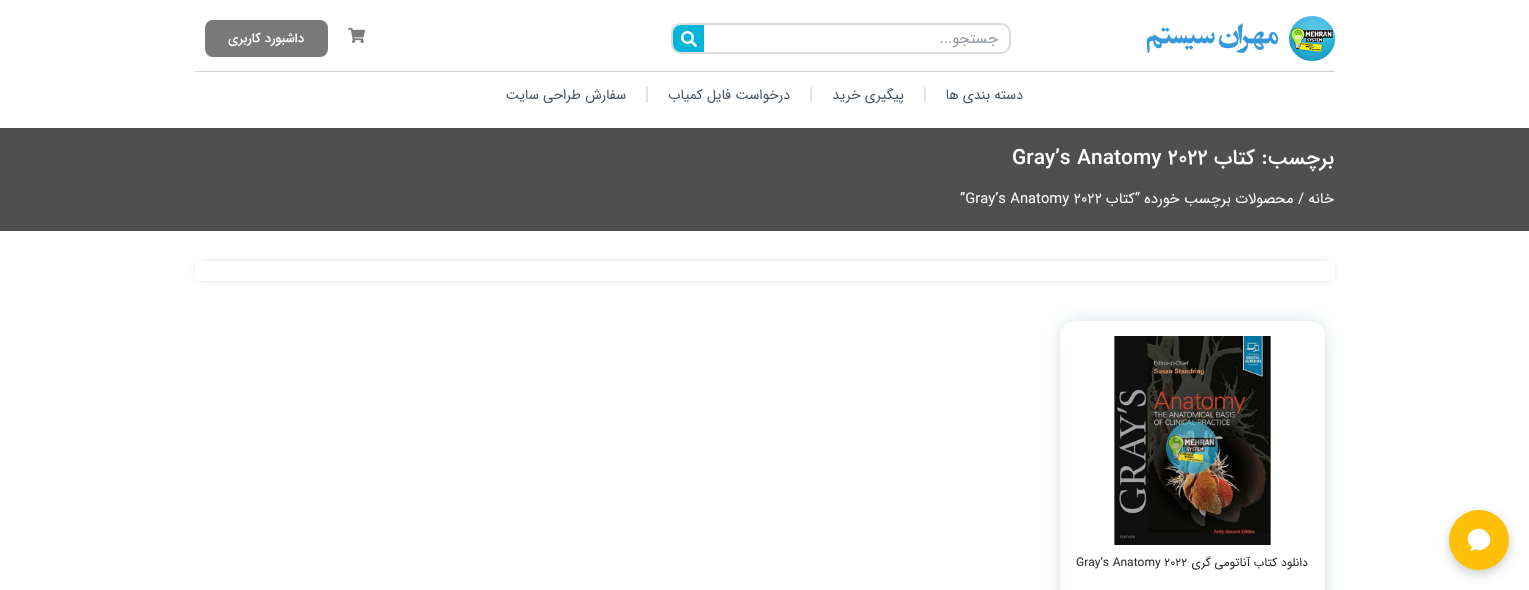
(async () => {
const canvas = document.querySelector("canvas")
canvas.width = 1529
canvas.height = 590
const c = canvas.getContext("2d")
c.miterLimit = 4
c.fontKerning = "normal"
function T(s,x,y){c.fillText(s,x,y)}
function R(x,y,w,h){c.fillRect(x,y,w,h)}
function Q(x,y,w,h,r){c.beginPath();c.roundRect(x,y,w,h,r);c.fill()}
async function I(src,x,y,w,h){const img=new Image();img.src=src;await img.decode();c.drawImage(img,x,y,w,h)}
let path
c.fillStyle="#fff"
R(0,0,1529,590)
await I("1.png",1146,16,189,45)
c.beginPath()
c.roundRect(672,24,338,29,9)
c.strokeStyle="#dbdbdb"
c.lineWidth=2
c.stroke()
c.direction="rtl"
c.font="15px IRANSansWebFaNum"
c.fillStyle="#9198a0"
T("جستجو...",998,43)
c.fillStyle="#00b5da"
c.beginPath()
c.roundRect(673,25,31,27,[8,0,0,8])
c.fill()
await I("2.png",681,31,16,16)
await I("3.png",348,27,17,16)
c.fillStyle="#797979"
Q(205,20,123,37,8)
c.font="500 13px IRANSansWebFaNum"
c.fillStyle="#fff"
T("داشبورد کاربری",304,42)
c.fillStyle="#d5d5d5"
R(195,71,1140,1)
c.font="14px IRANSansWebFaNum"
c.fillStyle="#485460"
T("دسته بندی ها",1023,99)
c.fillStyle="#e4e4e4"
R(924,87,2,16)
c.fillStyle="#485460"
T("پیگیری خرید",904,99)
c.fillStyle="#e4e4e4"
R(810,87,2,16)
c.fillStyle="#485460"
T("درخواست فایل کمیاب",790,99)
c.fillStyle="#e4e4e4"
R(646,87,2,16)
c.fillStyle="#485460"
T("سفارش طراحی سایت",626,99)
c.fillStyle="#00000033"
c.filter="blur(6px)"
c.beginPath()
c.roundRect(1449,514,60,60,30)
c.fill()
c.filter="none"
c.fillStyle="#ffc107"
c.beginPath()
c.arc(1479,540,30,0,7)
c.fill()
await I("4.png",1467,528,24,24)
c.fillStyle="#4f4f4f"
R(0,128,1529,103)
c.font="500 21px IRANSansWebFaNum"
c.fillStyle="#fff"
T("برچسب: کتاب",1334,164)
c.direction="ltr"
T("Gray’s Anatomy 2022",1012,164)
c.direction="rtl"
c.font="14.75px IRANSansWebFaNum"
T("خانه",1334,203)
T("/ محصولات برچسب خورده “کتاب",1304,203)
c.direction="ltr"
T("”Gray’s Anatomy 2022",960,203)
c.save()
path = new Path2D("M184 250h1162v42h-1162zm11 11h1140v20h-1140z")
c.clip(path,"evenodd")
c.fillStyle="#00000080"
c.filter="blur(5px)"
c.beginPath()
c.rect(200,266,1130,10)
c.fill()
c.filter="none"
c.restore()
c.save()
path = new Path2D("M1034 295h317v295h-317zm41 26h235c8.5 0 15 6.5 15 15v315c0 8.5-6.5 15-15 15h-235c-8.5 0-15-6.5-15-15v-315c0-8.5 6.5-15 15-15z")
c.clip(path,"evenodd")
c.fillStyle="#6093a680"
c.filter="blur(10px)"
c.beginPath()
c.roundRect(1065,326,255,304,10)
c.fill()
c.filter="none"
c.restore()
await I("5.png",1114,336,158,209)
c.direction="rtl"
c.font="12px IRANSansWebFaNum"
c.fillStyle="#282828"
T("دانلود کتاب آناتومی گری",1308,566)
c.direction="ltr"
T("Gray’s Anatomy 2022",1076,566)
})()
